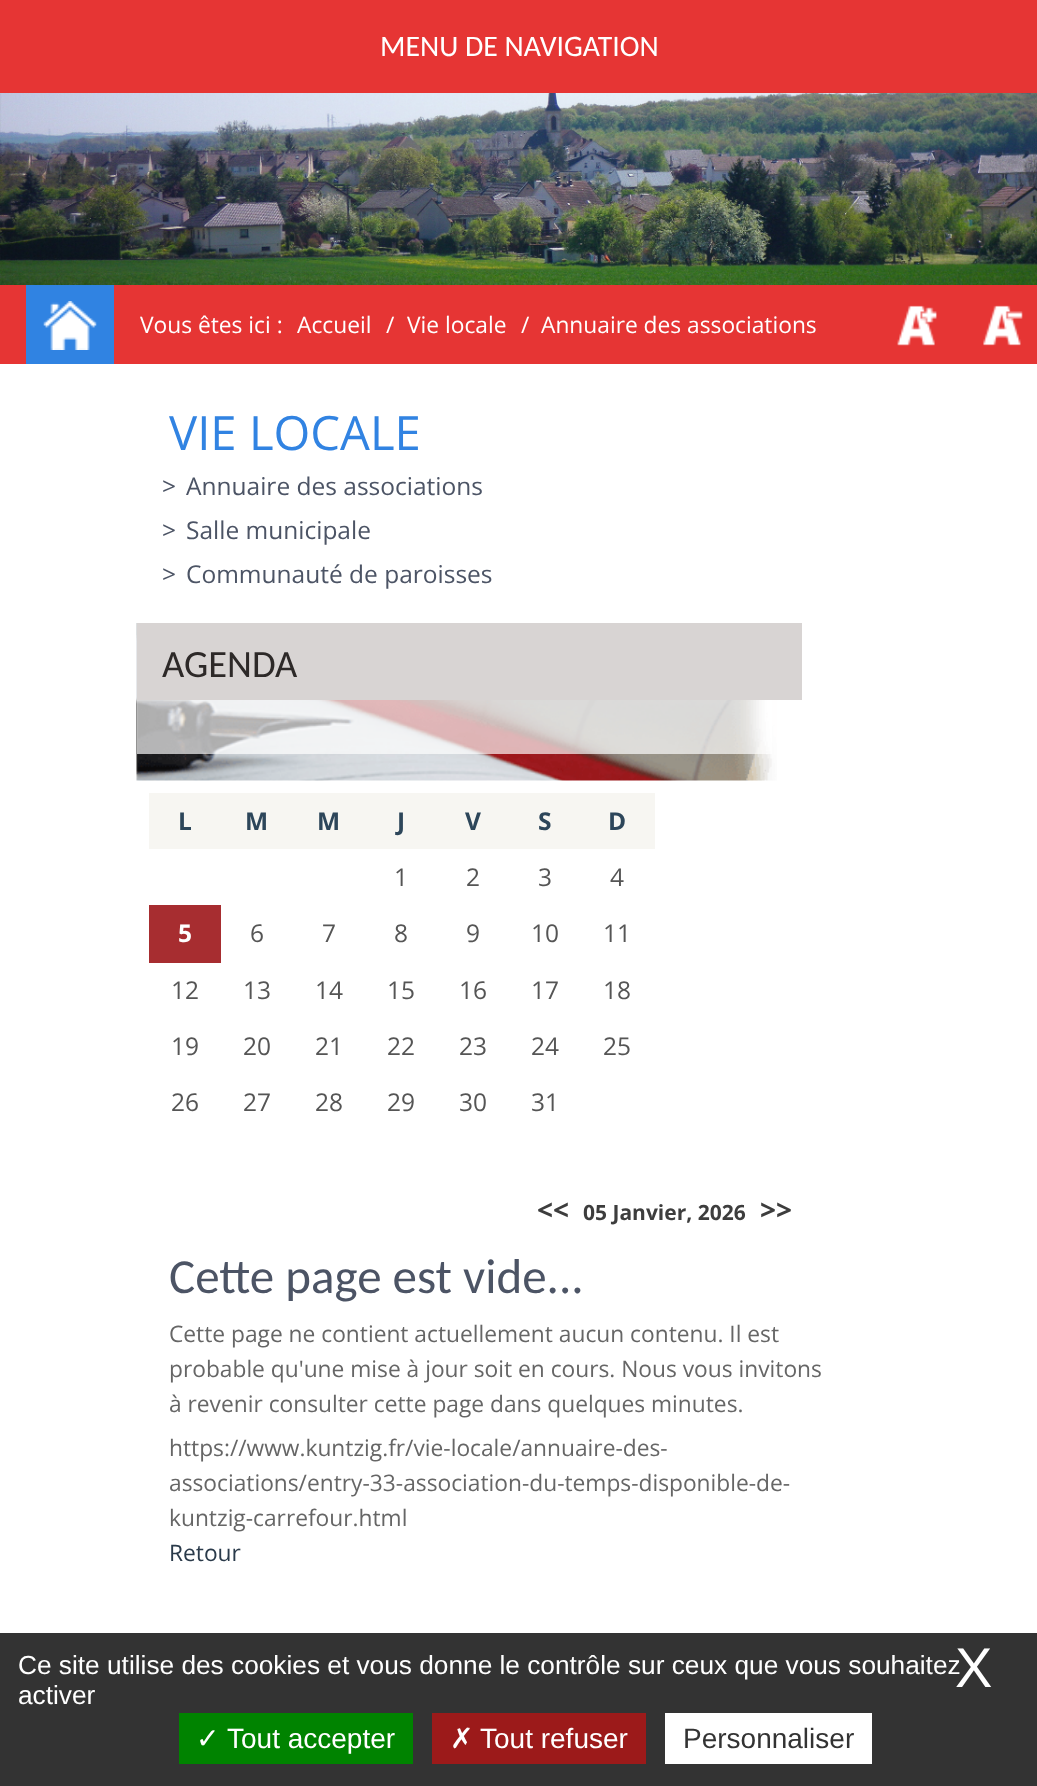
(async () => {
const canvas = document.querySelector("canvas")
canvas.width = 1037
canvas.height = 1786
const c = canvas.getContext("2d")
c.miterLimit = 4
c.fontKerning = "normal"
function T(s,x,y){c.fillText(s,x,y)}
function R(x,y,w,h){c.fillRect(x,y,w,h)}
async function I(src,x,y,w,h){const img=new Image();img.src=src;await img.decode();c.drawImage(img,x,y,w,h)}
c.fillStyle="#fff"
R(0,0,1037,1786)
await I("1.png",0,93,1037,192)
c.fillStyle="#e63534"
R(0,0,1037,93)
c.font="29.75px Carlito"
c.fillStyle="#fff"
T("MENU DE NAVIGATION",380,56)
c.fillStyle="#e63534"
R(0,285,1037,79)
c.fillStyle="#3083e2"
R(26,285,88,79)
await I("2.png",43,301,54,49)
c.font="22.75px Open Sans"
c.fillStyle="#fff"
T("Vous êtes ici :",140,333)
T("Accueil",297,333)
T("/",386,333)
T("Vie locale",407,333)
T("/",521,333)
T("Annuaire des associations",541,333)
await I("3.png",897,305,40,41)
await I("4.png",983,305,40,41)
c.font="47.25px Open Sans"
c.fillStyle="#3183e2"
T("VIE LOCALE",169,450)
c.font="24.5px Open Sans"
c.fillStyle="#4c5465"
T(">",162,495)
T("Annuaire des associations",186,495)
T(">",162,539)
T("Salle municipale",186,539)
T(">",162,583)
T("Communauté de paroisses",186,583)
await I("5.png",136,623,641,158)
c.fillStyle="#ffffffad"
R(137,700,635,54)
c.fillStyle="#d8d4d3"
R(137,623,665,77)
c.font="38.5px Carlito"
c.fillStyle="#2d2928"
T("AGENDA",162,677)
c.fillStyle="#f7f6f2"
R(149,793,506,56)
c.font="bold 24.5px Open Sans"
c.fillStyle="#2d465a"
T("L",178,830)
T("M",245,830)
T("M",317,830)
T("J",397,830)
T("V",465,830)
T("S",538,830)
T("D",608,830)
c.font="24.5px Open Sans"
c.fillStyle="#555"
T("1",394,886)
T("2",466,886)
T("3",538,886)
T("4",610,886)
c.fillStyle="#a72d30"
R(149,905,72,58)
c.font="bold 24.5px Open Sans"
c.fillStyle="#fff"
T("5",178,942)
c.font="24.5px Open Sans"
c.fillStyle="#555"
T("6",250,942)
T("7",322,942)
T("8",394,942)
T("9",466,942)
T("10",531,942)
T("11",603,942)
T("12",171,999)
T("13",243,999)
T("14",315,999)
T("15",387,999)
T("16",459,999)
T("17",531,999)
T("18",603,999)
T("19",171,1055)
T("20",243,1055)
T("21",315,1055)
T("22",387,1055)
T("23",459,1055)
T("24",531,1055)
T("25",603,1055)
T("26",171,1111)
T("27",243,1111)
T("28",315,1111)
T("29",387,1111)
T("30",459,1111)
T("31",531,1111)
c.font="bold 28px Open Sans"
c.fillStyle="#3d3d3d"
T("<<",537,1220)
c.font="bold 21px Open Sans"
T("05 Janvier, 2026",583,1220)
c.font="bold 28px Open Sans"
T(">>",760,1220)
c.font="49px Carlito"
c.fillStyle="#4c5465"
T("Cette page est vide...",169,1293)
c.font="22.75px Open Sans"
c.fillStyle="#666"
T("Cette page ne contient actuellement aucun contenu. Il est",169,1342)
T("probable qu'une mise à jour soit en cours. Nous vous invitons",169,1377)
T("à revenir consulter cette page dans quelques minutes.",169,1412)
T("https://www.kuntzig.fr/vie-locale/annuaire-des-",169,1456)
T("associations/entry-33-association-du-temps-disponible-de-",169,1491)
T("kuntzig-carrefour.html",169,1526)
c.fillStyle="#2a3a4a"
T("Retour",169,1561)
c.fillStyle="#333"
R(0,1633,1037,153)
c.font="26.25px Liberation Sans"
c.fillStyle="#fff"
T("Ce site utilise des cookies et vous donne le contrôle sur ceux que vous souhaitez",18,1674)
T("activer",18,1704)
c.font="56px Liberation Sans"
T("X",955,1687)
c.fillStyle="#008300"
R(179,1713,234,51)
c.font="28px DejaVu Sans"
c.fillStyle="#fff"
T("✓",196,1748)
c.font="28px Liberation Sans"
T("Tout accepter",227,1748)
c.fillStyle="#9c1a1a"
R(432,1713,214,51)
c.font="28px DejaVu Sans"
c.fillStyle="#fff"
T("✗",450,1748)
c.font="28px Liberation Sans"
T("Tout refuser",480,1748)
R(665,1713,207,51)
c.fillStyle="#333"
T("Personnaliser",683,1748)
})()
